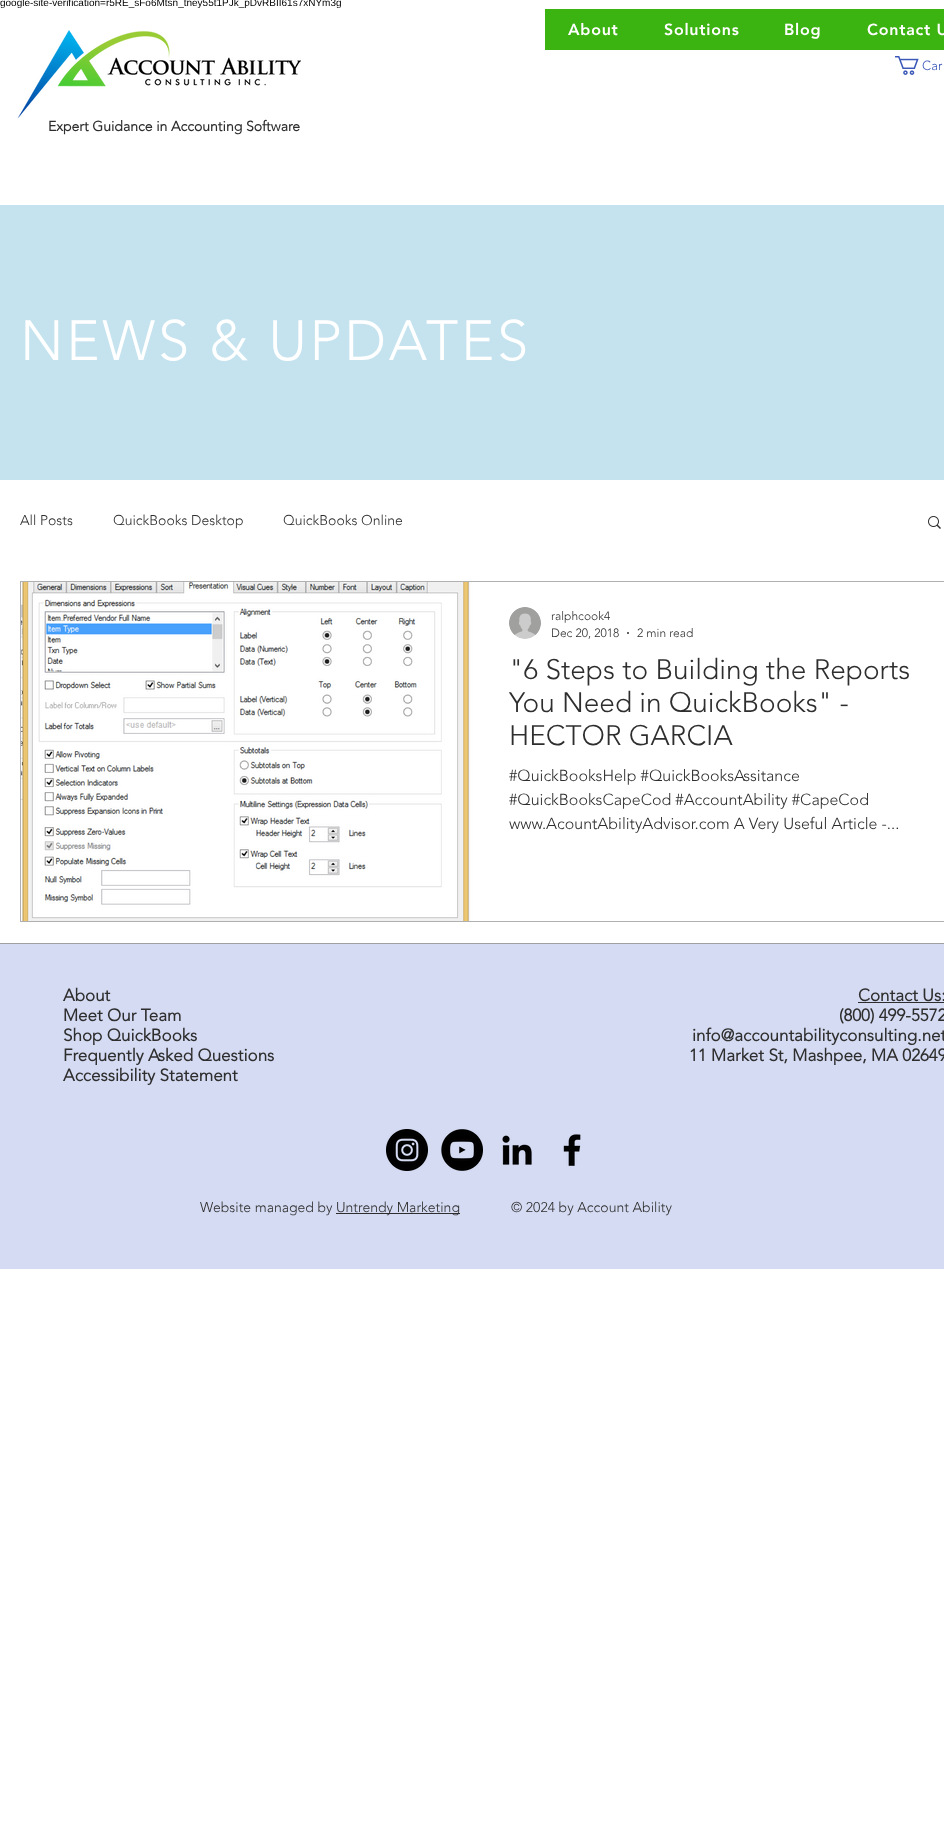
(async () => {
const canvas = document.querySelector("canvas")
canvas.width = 944
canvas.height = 1841
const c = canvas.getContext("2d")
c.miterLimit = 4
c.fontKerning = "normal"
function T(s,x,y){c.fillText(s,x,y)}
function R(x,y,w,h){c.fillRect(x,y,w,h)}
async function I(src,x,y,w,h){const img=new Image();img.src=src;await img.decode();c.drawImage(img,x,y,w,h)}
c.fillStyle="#fff"
R(0,0,944,1841)
c.font="10px Liberation Sans"
c.fillStyle="#000"
T("google-site-verification=r5RE_sFo6Mtsn_tney55t1PJk_pDvRBII61s7xNYm3g",0,6)
c.fillStyle="#fff"
R(2,8,337,1)
await I("1.png",17,30,284,89)
c.fillStyle="#3bb310"
R(545,9,399,41)
c.letterSpacing="0.75px"
c.font="900 16px 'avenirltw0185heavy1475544'"
c.fillStyle="#fff"
T("About",568,35)
T("Solutions",664,35)
T("Blog",784,35)
T("Contact U",867,35)
await I("2.png",895,56,24,19)
c.letterSpacing="0px"
c.font="300 13px 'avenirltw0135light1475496'"
c.fillStyle="#3b58b8"
T("Car",922,70)
c.font="bold 14px 'avenirltw0135light1475496'"
c.fillStyle="#2f2e2e"
T("Expert Guidance in Accounting Software",48,131)
c.fillStyle="#c5e3ef"
R(0,205,944,275)
c.letterSpacing="2.75px"
c.font="300 56px 'avenirltw0135light1475496'"
c.fillStyle="#fff"
T("NEWS & UPDATES",20,360)
c.letterSpacing="0px"
c.font="300 14px 'avenirltw0135light1475496'"
c.fillStyle="#2f2e2e"
T("All Posts",20,525)
T("QuickBooks Desktop",113,525)
T("QuickBooks Online",283,525)
await I("3.png",928,516,13,13)
c.strokeStyle="#b0b0b0"
c.strokeRect(20.5,581.5,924,340)
await I("4.png",21,582,453,339)
await I("5.png",509,607,32,32)
c.font="300 12px 'avenirltw0135light1475496'"
T("ralphcook4",551,620)
T("Dec 20, 2018",551,637)
c.beginPath()
c.arc(628,633,1,0,7)
c.fill()
T("2 min read",637,637)
c.font="300 28px 'avenirltw0135light1475496'"
T("\"6 Steps to Building the Reports",509,679)
T("You Need in QuickBooks\" -",509,712)
T("HECTOR GARCIA",509,745)
c.font="300 16px 'avenirltw0135light1475496'"
T("#QuickBooksHelp #QuickBooksAssitance",509,781)
T("#QuickBooksCapeCod #AccountAbility #CapeCod",509,805)
T("www.AcountAbilityAdvisor.com A Very Useful Article -...",509,829)
c.fillStyle="#d4dbf2"
R(0,944,944,325)
c.fillStyle="#a0a09f"
R(0,943,944,1)
c.font="bold 17px 'avenirltw0135light1475496'"
c.fillStyle="#2f2e2e"
T("About",63,1001)
T("Meet Our Team",63,1021)
T("Shop QuickBooks",63,1041)
T("Frequently Asked Questions",63,1061)
T("Accessibility Statement",63,1081)
T("Contact Us:",858,1001)
R(858,1002,86,1)
T("(800) 499-5572",839,1021)
T("info@accountabilityconsulting.net",692,1041)
T("11 Market St, Mashpee, MA 02649",689,1061)
await I("6.png",386,1129,42,42)
await I("7.png",441,1129,42,42)
await I("8.png",502,1135,30,30)
await I("9.png",563,1134,18,32)
c.font="300 14px 'avenirltw0135light1475496'"
T("Website managed by",200,1212)
R(336,1213,124,1)
T("Untrendy Marketing",336,1212)
T("© 2024 by Account Ability",511,1212)
})()
